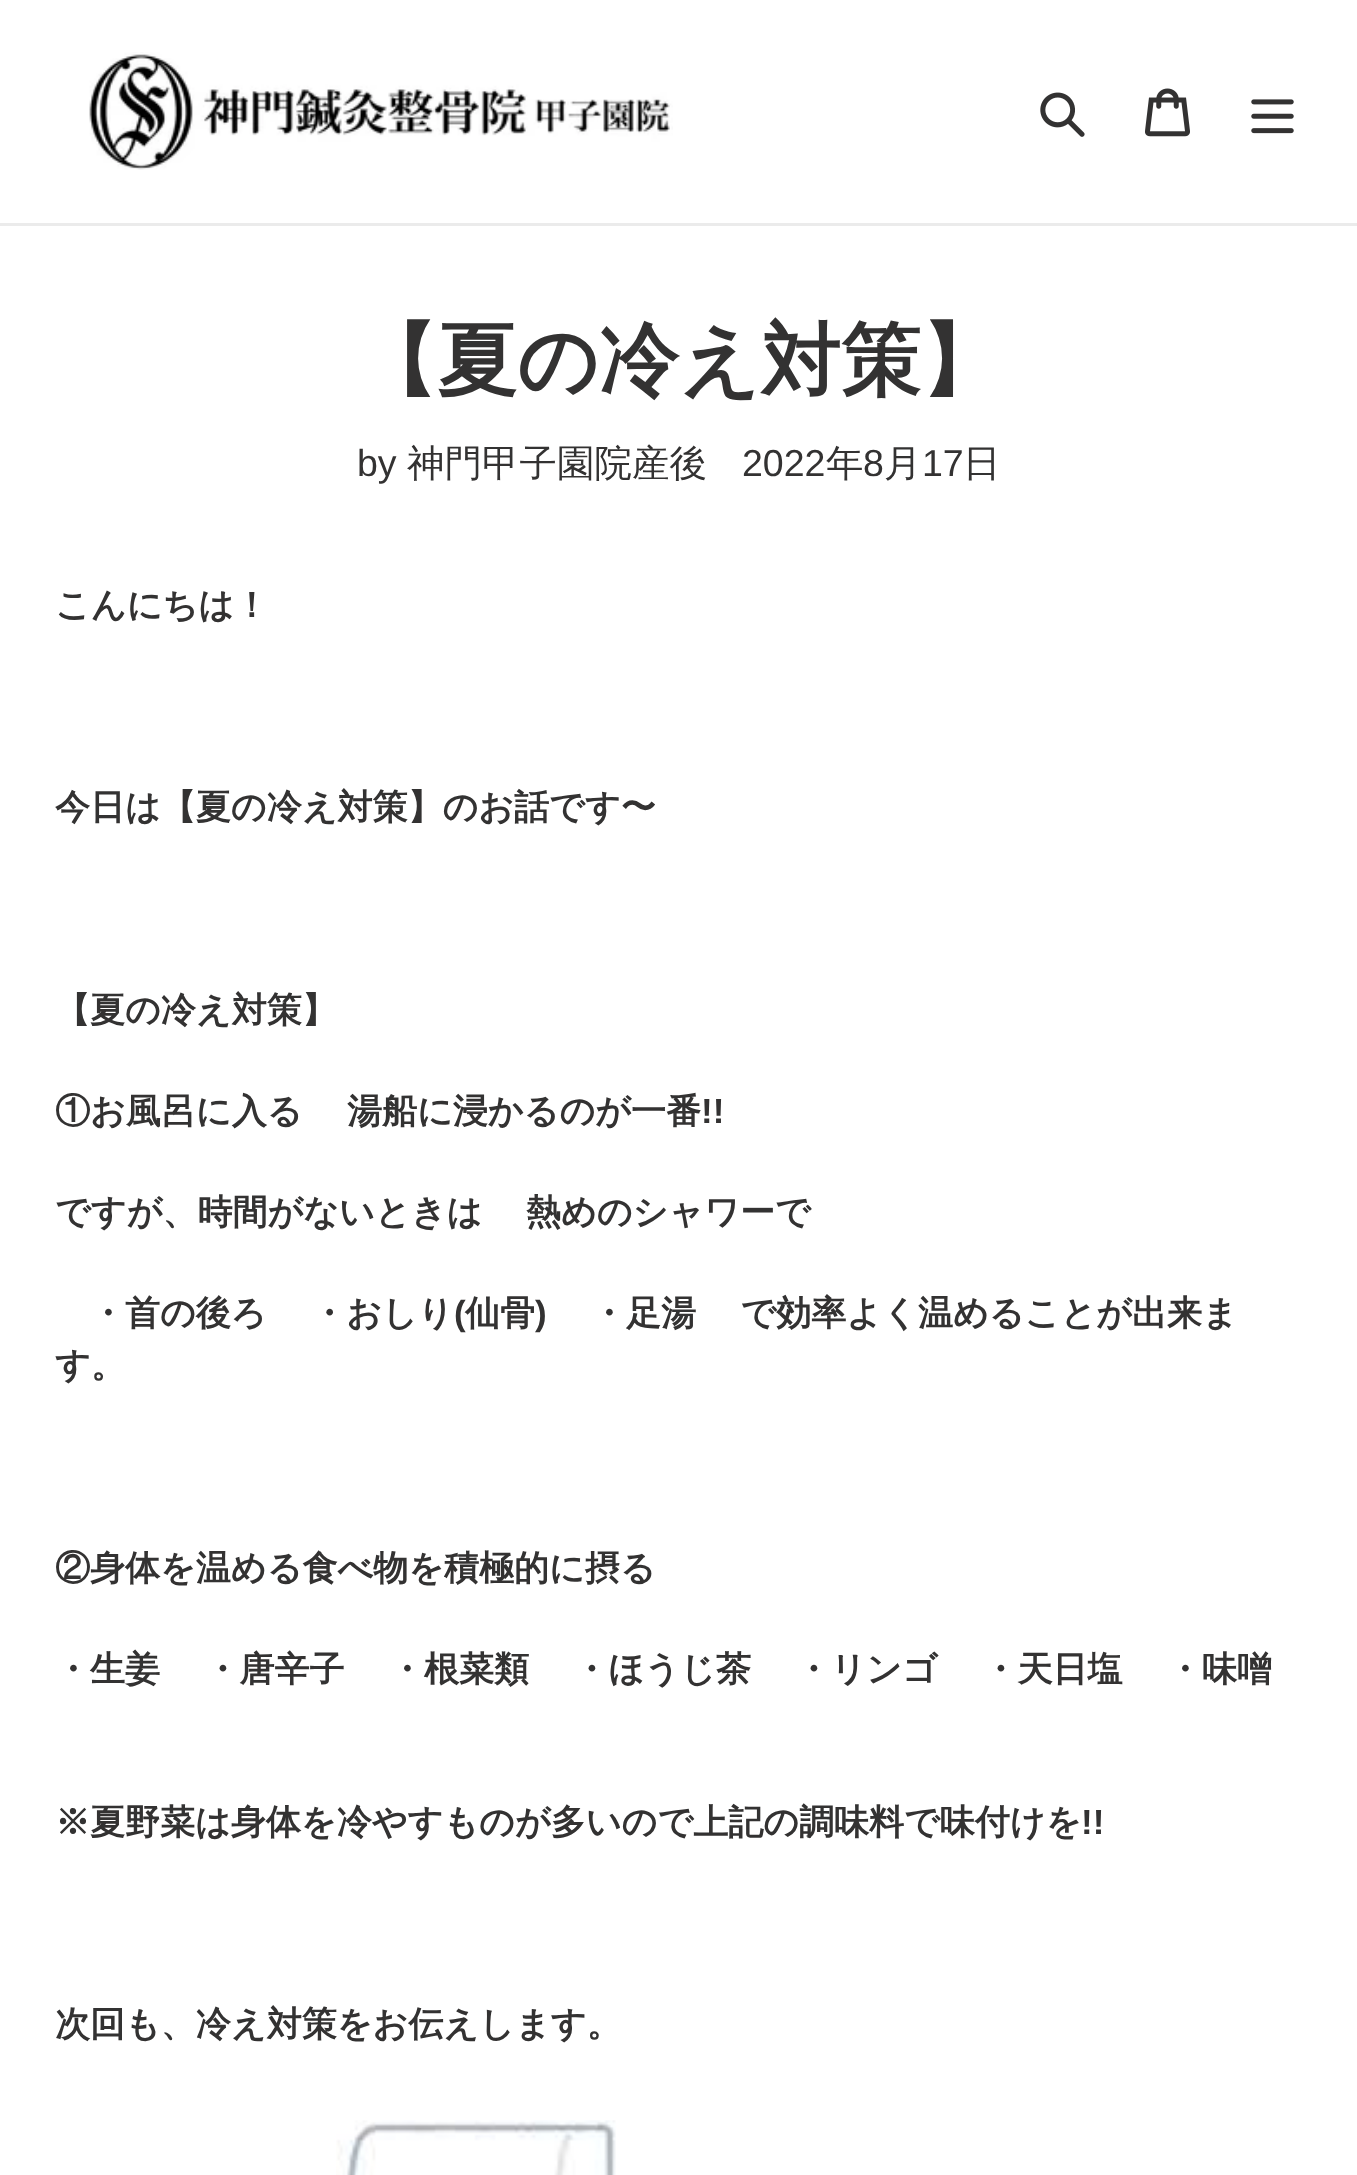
(async () => {
const canvas = document.querySelector("canvas")
canvas.width = 1357
canvas.height = 2175
const c = canvas.getContext("2d")
c.miterLimit = 4
c.fontKerning = "normal"
function T(s,x,y){c.fillText(s,x,y)}
function R(x,y,w,h){c.fillRect(x,y,w,h)}
async function I(src,x,y,w,h){const img=new Image();img.src=src;await img.decode();c.drawImage(img,x,y,w,h)}
c.fillStyle="#fff"
R(0,0,1357,2175)
c.fillStyle="#ebebeb"
R(0,223,1357,3)
await I("1.png",89,52,584,118)
await I("2.png",1040,92,45,45)
await I("3.png",1145,88,45,49)
await I("4.png",1251,99,43,35)
c.font="bold 80px WenQuanYi Zen Hei"
c.fillStyle="#333232"
T("【夏の冷え対策】",357,388)
c.font="37.5px Liberation Sans"
T("by",357,476)
c.font="500 37.5px WenQuanYi Zen Hei"
T("神門甲子園院産後",407,476)
c.font="37.5px Liberation Sans"
T("2022",742,476)
c.font="500 37.5px WenQuanYi Zen Hei"
T("年",826,476)
c.font="37.5px Liberation Sans"
T("8",863,476)
c.font="500 37.5px WenQuanYi Zen Hei"
T("月",884,476)
c.font="37.5px Liberation Sans"
T("17",922,476)
c.font="500 37.5px WenQuanYi Zen Hei"
T("日",963,476)
c.font="bold 35px WenQuanYi Zen Hei"
T("こんにちは！",55,617)
T("今日は【夏の冷え対策】のお話です〜",55,819)
T("【夏の冷え対策】",55,1022)
c.wordSpacing="-1px"
T("①お風呂に入る 　湯船に浸かるのが一番",55,1123)
c.wordSpacing="0px"
c.font="bold 35px Liberation Sans"
T("!!",701,1123)
c.wordSpacing="-2px"
c.font="bold 35px WenQuanYi Zen Hei"
T("ですが、時間がないときは 　熱めのシャワーで",55,1224)
c.wordSpacing="-1px"
T("・首の後ろ 　・おしり",90,1325)
c.wordSpacing="0px"
c.font="bold 35px Liberation Sans"
T("(",454,1325)
c.font="bold 35px WenQuanYi Zen Hei"
T("仙骨",465,1325)
c.font="bold 35px Liberation Sans"
T(")",535,1325)
c.wordSpacing="-1px"
c.font="bold 35px WenQuanYi Zen Hei"
T("・足湯 　で効率よく温めることが出来ま",591,1325)
c.wordSpacing="0px"
T("す。",55,1377)
T("②身体を温める食べ物を積極的に摂る",55,1580)
c.wordSpacing="-1px"
T("・生姜 　・唐辛子 　・根菜類 　・ほうじ茶 　・リンゴ 　・天日塩 　・味噌",55,1681)
c.wordSpacing="0px"
T("※夏野菜は身体を冷やすものが多いので上記の調味料で味付けを",55,1834)
c.font="bold 35px Liberation Sans"
T("!!",1081,1834)
c.font="bold 35px WenQuanYi Zen Hei"
T("次回も、冷え対策をお伝えします。",55,2036)
await I("5.png",336,2120,280,55)
})()
